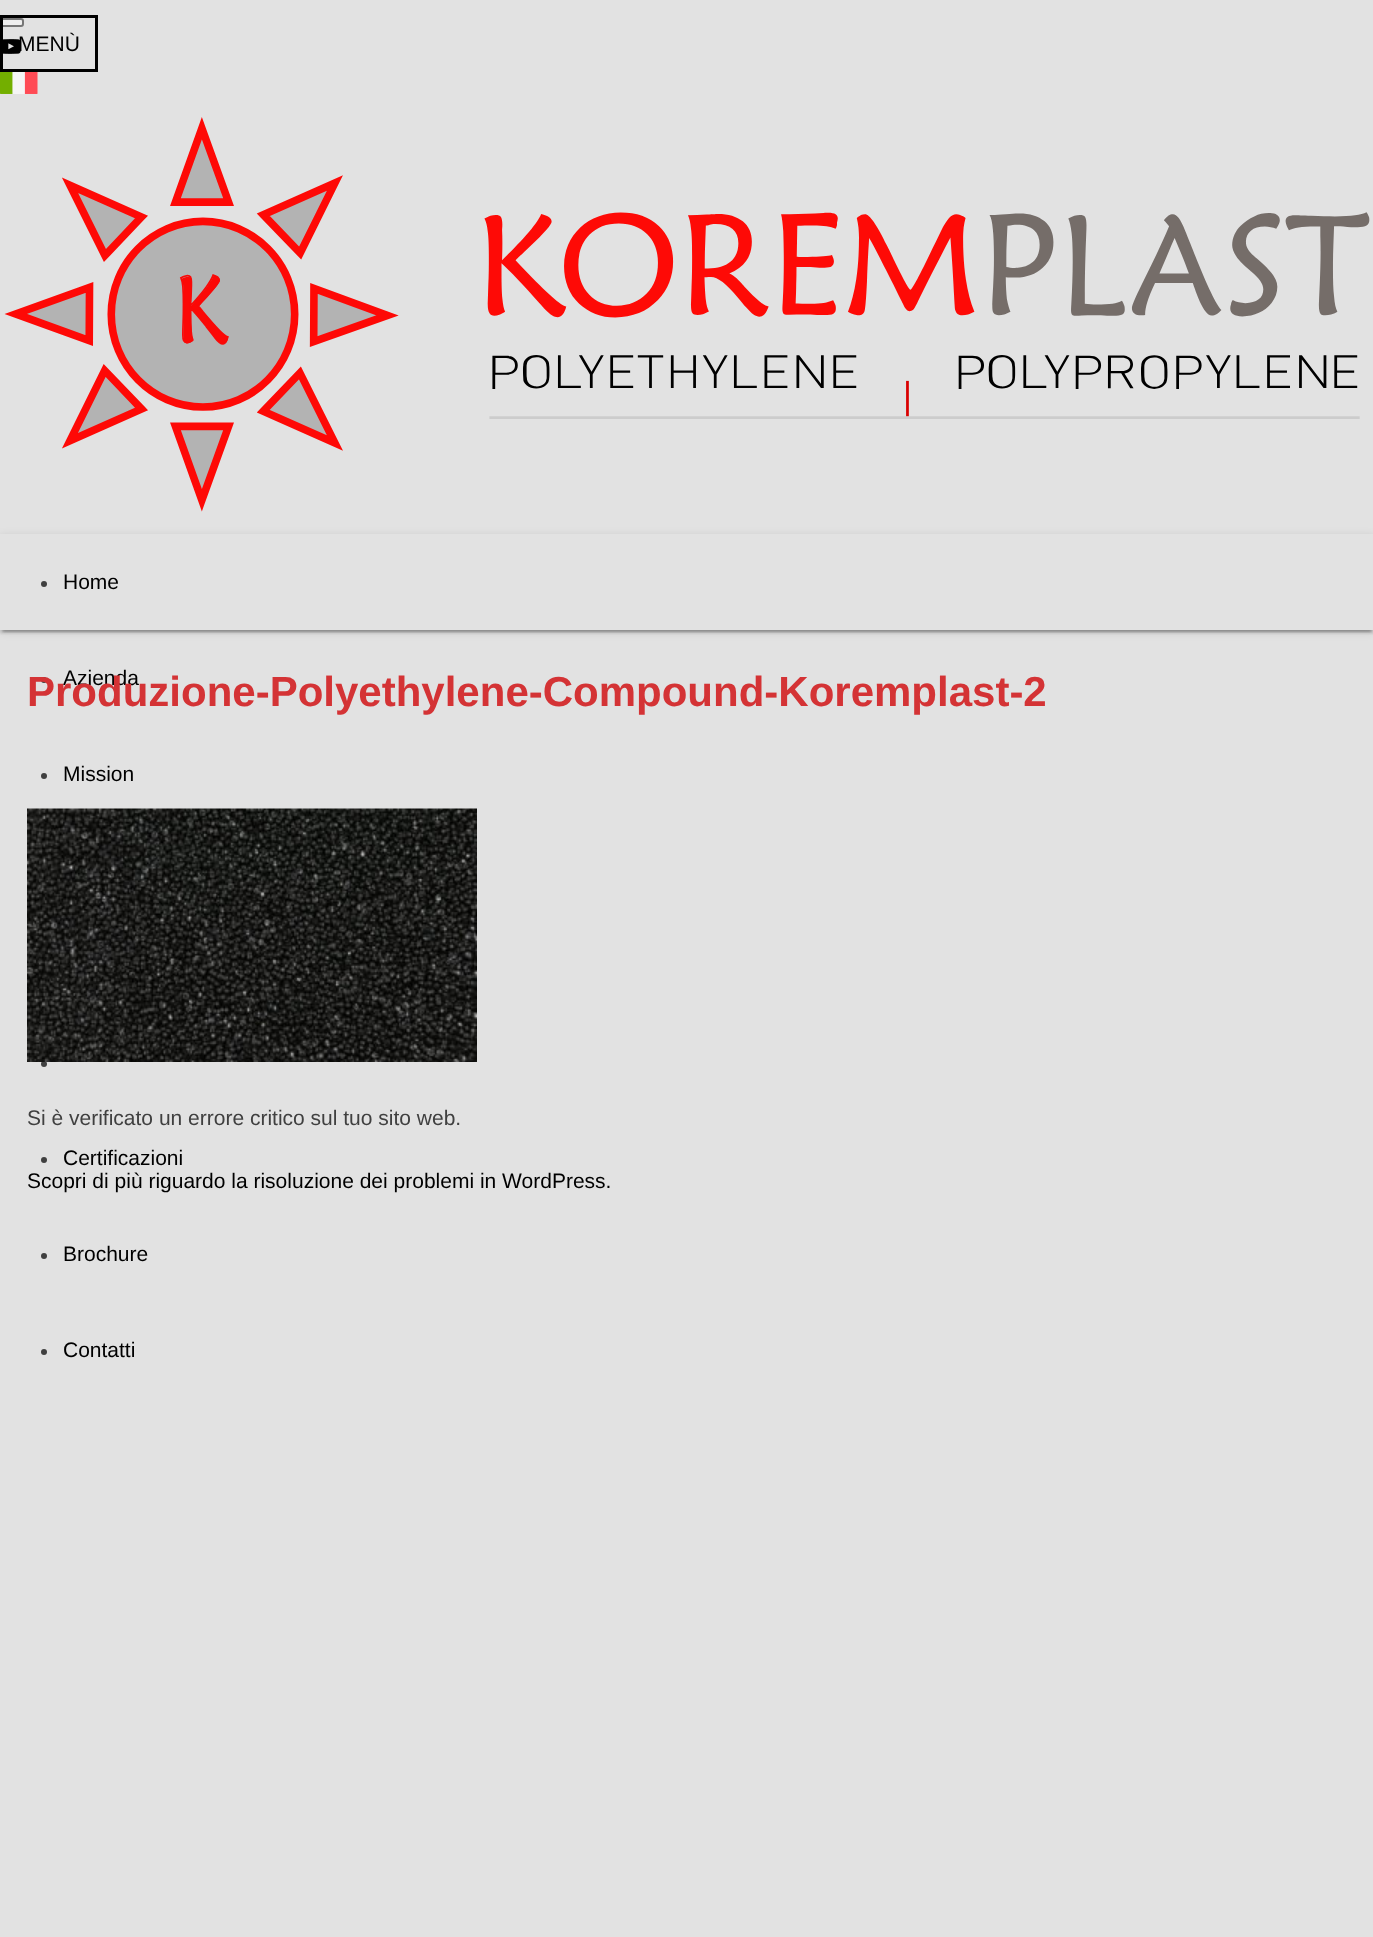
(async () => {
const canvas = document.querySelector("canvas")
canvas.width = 1373
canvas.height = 1937
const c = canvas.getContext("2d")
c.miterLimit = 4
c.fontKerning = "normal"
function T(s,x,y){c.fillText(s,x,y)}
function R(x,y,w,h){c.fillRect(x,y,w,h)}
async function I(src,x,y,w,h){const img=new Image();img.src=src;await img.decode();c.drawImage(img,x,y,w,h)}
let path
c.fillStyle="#e2e2e2"
R(0,0,1373,1937)
await I("1.png",3,39,18,15)
c.fillStyle="#efefef"
c.beginPath()
c.roundRect(1,19,22,7,2)
c.fill()
c.strokeStyle="#767676"
c.lineWidth=2
c.stroke()
c.strokeStyle="#000"
c.lineWidth=3
c.strokeRect(1.5,16.5,95,54)
c.font="21px Liberation Sans"
c.fillStyle="#000"
T("MENÙ",18,51)
await I("2.png",0,72,38,22)
await I("3.png",4,117,1366,395)
c.save()
c.beginPath()
c.rect(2,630,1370,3)
c.clip()
c.fillStyle="#00000033"
c.filter="blur(1px)"
c.beginPath()
c.rect(3,542,1368,90)
c.fill()
c.filter="none"
c.restore()
c.save()
path = new Path2D("M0 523h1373v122h-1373zm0 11h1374v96h-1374z")
c.clip(path,"evenodd")
c.fillStyle="#0000001f"
c.filter="blur(4px)"
c.beginPath()
c.rect(0,536,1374,96)
c.fill()
c.filter="none"
c.restore()
c.save()
c.beginPath()
c.rect(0,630,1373,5)
c.clip()
c.fillStyle="#00000024"
c.filter="blur(1.5px)"
c.beginPath()
c.rect(0,537,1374,96)
c.fill()
c.filter="none"
c.restore()
c.fillStyle="#404040"
c.beginPath()
c.arc(44,584,3,0,7)
c.fill()
c.fillStyle="#000"
T("Home",63,589)
c.fillStyle="#404040"
c.beginPath()
c.arc(44,680,3,0,7)
c.fill()
c.fillStyle="#000"
T("Azienda",63,685)
c.fillStyle="#404040"
c.beginPath()
c.arc(44,776,3,0,7)
c.fill()
c.fillStyle="#000"
T("Mission",63,781)
c.fillStyle="#404040"
c.beginPath()
c.arc(44,1064,3,0,7)
c.fill()
c.beginPath()
c.arc(44,1160,3,0,7)
c.fill()
c.fillStyle="#000"
T("Certificazioni",63,1165)
c.fillStyle="#404040"
c.beginPath()
c.arc(44,1256,3,0,7)
c.fill()
c.fillStyle="#000"
T("Brochure",63,1261)
c.fillStyle="#404040"
c.beginPath()
c.arc(44,1352,3,0,7)
c.fill()
c.fillStyle="#000"
T("Contatti",63,1357)
c.font="bold 42px Liberation Sans"
c.fillStyle="#d43335"
T("Produzione-Polyethylene-Compound-Koremplast-2",27,706)
await I("4.png",27,808,450,254)
c.font="21px Liberation Sans"
c.fillStyle="#404040"
T("Si è verificato un errore critico sul tuo sito web.",27,1125)
c.fillStyle="#000"
T("Scopri di più riguardo la risoluzione dei problemi in WordPress.",27,1188)
})()
